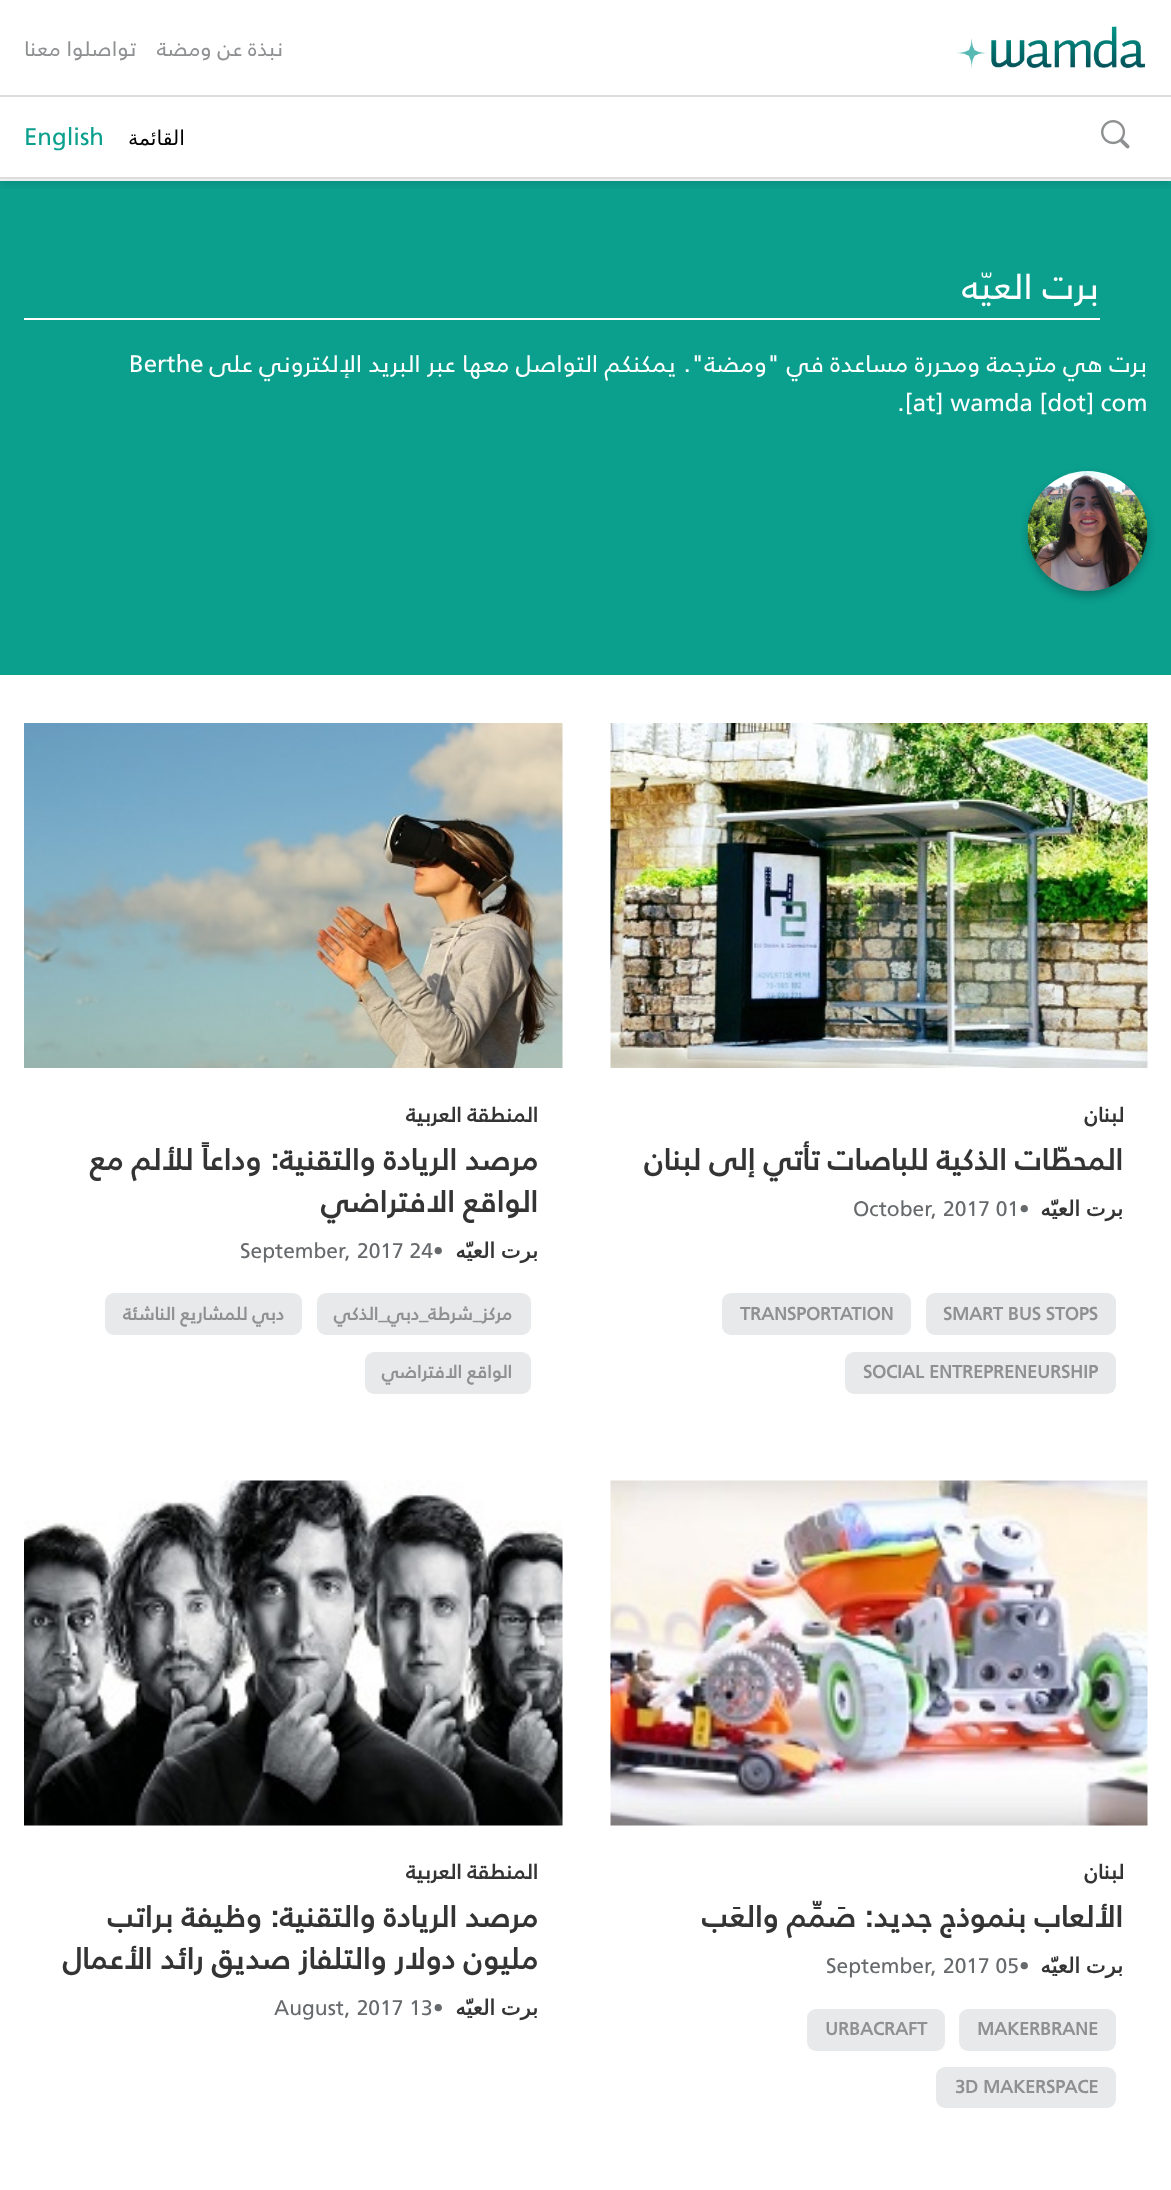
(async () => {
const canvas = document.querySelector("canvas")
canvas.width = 1171
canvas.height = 2190
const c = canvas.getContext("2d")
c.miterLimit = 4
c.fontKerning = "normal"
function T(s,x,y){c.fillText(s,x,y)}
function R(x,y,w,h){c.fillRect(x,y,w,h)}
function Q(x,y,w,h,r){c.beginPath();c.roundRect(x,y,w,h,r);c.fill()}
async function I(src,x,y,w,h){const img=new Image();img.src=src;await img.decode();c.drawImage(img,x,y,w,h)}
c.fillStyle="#fff"
R(0,0,1171,2190)
c.fillStyle="#0b9f8e"
R(0,181,1171,494)
c.save()
c.beginPath()
c.rect(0,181,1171,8)
c.clip()
c.fillStyle="#0000001a"
c.filter="blur(5px)"
c.beginPath()
c.rect(0,5,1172,180)
c.fill()
c.filter="none"
c.restore()
c.fillStyle="#eee"
R(0,179,1171,2)
await I("1.png",956,26,189,43)
c.direction="rtl"
c.font="21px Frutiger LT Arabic"
c.fillStyle="#8e9091"
T("نبذة عن ومضة",283,56)
T("تواصلوا معنا",136,56)
c.fillStyle="#ddd"
R(0,95,1171,2)
R(0,177,1171,2)
await I("2.png",1101,120,29,29)
c.font="20.5px DejaVu Sans"
c.fillStyle="#000"
T("القائمة",185,145)
c.direction="ltr"
c.font="24px Frutiger LT Arabic"
c.fillStyle="#0b9f8e"
T("English",24,145)
c.fillStyle="#fff"
R(24,318,1076,2)
c.direction="rtl"
c.font="36px Frutiger LT Arabic"
T("برت العيّه",1099,299)
c.font="24px Frutiger LT Arabic"
T("برت هي مترجمة ومحررة مساعدة في \"ومضة\". يمكنكم التواصل معها عبر البريد الإلكتروني على",1147,372)
c.direction="ltr"
T("Berthe",129,372)
T(".[at] wamda [dot] com",897,411)
c.fillStyle="#00000040"
c.filter="blur(4px)"
c.beginPath()
c.roundRect(1028,476,120,120,60)
c.fill()
c.filter="none"
await I("3.png",1027,471,121,120)
await I("4.png",610,723,538,345)
c.direction="rtl"
c.font="bold 21px Frutiger LT Arabic"
c.fillStyle="#343434"
T("لبنان",1124,1122)
c.font="bold 30px Frutiger LT Arabic"
T("المحطّات الذكية للباصات تأتي إلى لبنان",1123,1170)
c.wordSpacing="-1px"
c.font="bold 21px DejaVu Sans"
T("برت العيّه",1123,1216)
c.wordSpacing="0px"
c.direction="ltr"
c.font="21px Frutiger LT Arabic"
c.fillStyle="#676a6c"
T("•",1019,1216)
T("October, 2017 01",853,1216)
c.fillStyle="#e7e9ea"
Q(926,1293,190,42,9)
c.font="bold 18px Frutiger LT Arabic"
c.fillStyle="#8e9091"
T("SMART BUS STOPS",943,1320)
c.fillStyle="#e7e9ea"
Q(722,1293,189,42,9)
c.fillStyle="#8e9091"
T("TRANSPORTATION",740,1320)
c.fillStyle="#e7e9ea"
Q(845,1352,271,42,9)
c.fillStyle="#8e9091"
T("SOCIAL ENTREPRENEURSHIP",863,1378)
await I("5.png",24,723,539,345)
c.direction="rtl"
c.font="bold 21px Frutiger LT Arabic"
c.fillStyle="#343434"
T("المنطقة العربية",538,1122)
c.font="bold 30px Frutiger LT Arabic"
T("مرصد الريادة والتقنية:",538,1170)
T("وداعاً للألم مع",261,1170)
T("الواقع الافتراضي",538,1212)
c.wordSpacing="-1px"
c.font="bold 21px DejaVu Sans"
T("برت العيّه",538,1258)
c.wordSpacing="0px"
c.direction="ltr"
c.font="21px Frutiger LT Arabic"
c.fillStyle="#676a6c"
T("•",433,1258)
T("September, 2017 24",240,1258)
c.fillStyle="#e7e9ea"
Q(317,1293,214,42,9)
c.direction="rtl"
c.font="bold 18px Frutiger LT Arabic"
c.fillStyle="#8e9091"
T("مركز_شرطة_دبي_الذكي",512,1320)
c.fillStyle="#e7e9ea"
Q(105,1293,197,42,9)
c.fillStyle="#8e9091"
T("دبي للمشاريع الناشئة",284,1320)
c.fillStyle="#e7e9ea"
Q(365,1352,166,42,9)
c.fillStyle="#8e9091"
T("الواقع الافتراضي",512,1378)
await I("6.png",610,1480,538,346)
c.font="bold 21px Frutiger LT Arabic"
c.fillStyle="#343434"
T("لبنان",1124,1879)
c.font="bold 30px Frutiger LT Arabic"
T("الألعاب بنموذج جديد: صَمِّم والعَب",1123,1927)
c.wordSpacing="-1px"
c.font="bold 21px DejaVu Sans"
T("برت العيّه",1123,1973)
c.wordSpacing="0px"
c.direction="ltr"
c.font="21px Frutiger LT Arabic"
c.fillStyle="#676a6c"
T("•",1019,1973)
T("September, 2017 05",826,1973)
c.fillStyle="#e7e9ea"
Q(959,2009,157,42,9)
c.font="bold 18px Frutiger LT Arabic"
c.fillStyle="#8e9091"
T("MAKERBRANE",977,2035)
c.fillStyle="#e7e9ea"
Q(807,2009,138,42,9)
c.fillStyle="#8e9091"
T("URBACRAFT",825,2035)
c.fillStyle="#e7e9ea"
Q(936,2067,180,41,9)
c.fillStyle="#8e9091"
T("3D MAKERSPACE",955,2093)
await I("7.png",24,1480,539,346)
c.direction="rtl"
c.font="bold 21px Frutiger LT Arabic"
c.fillStyle="#343434"
T("المنطقة العربية",538,1879)
c.font="bold 30px Frutiger LT Arabic"
T("مرصد الريادة والتقنية: وظيفة براتب",538,1927)
T("مليون دولار والتلفاز صديق رائد الأعمال",538,1969)
c.wordSpacing="-1px"
c.font="bold 21px DejaVu Sans"
T("برت العيّه",538,2015)
c.wordSpacing="0px"
c.direction="ltr"
c.font="21px Frutiger LT Arabic"
c.fillStyle="#676a6c"
T("•",433,2015)
T("August, 2017 13",274,2015)
})()
